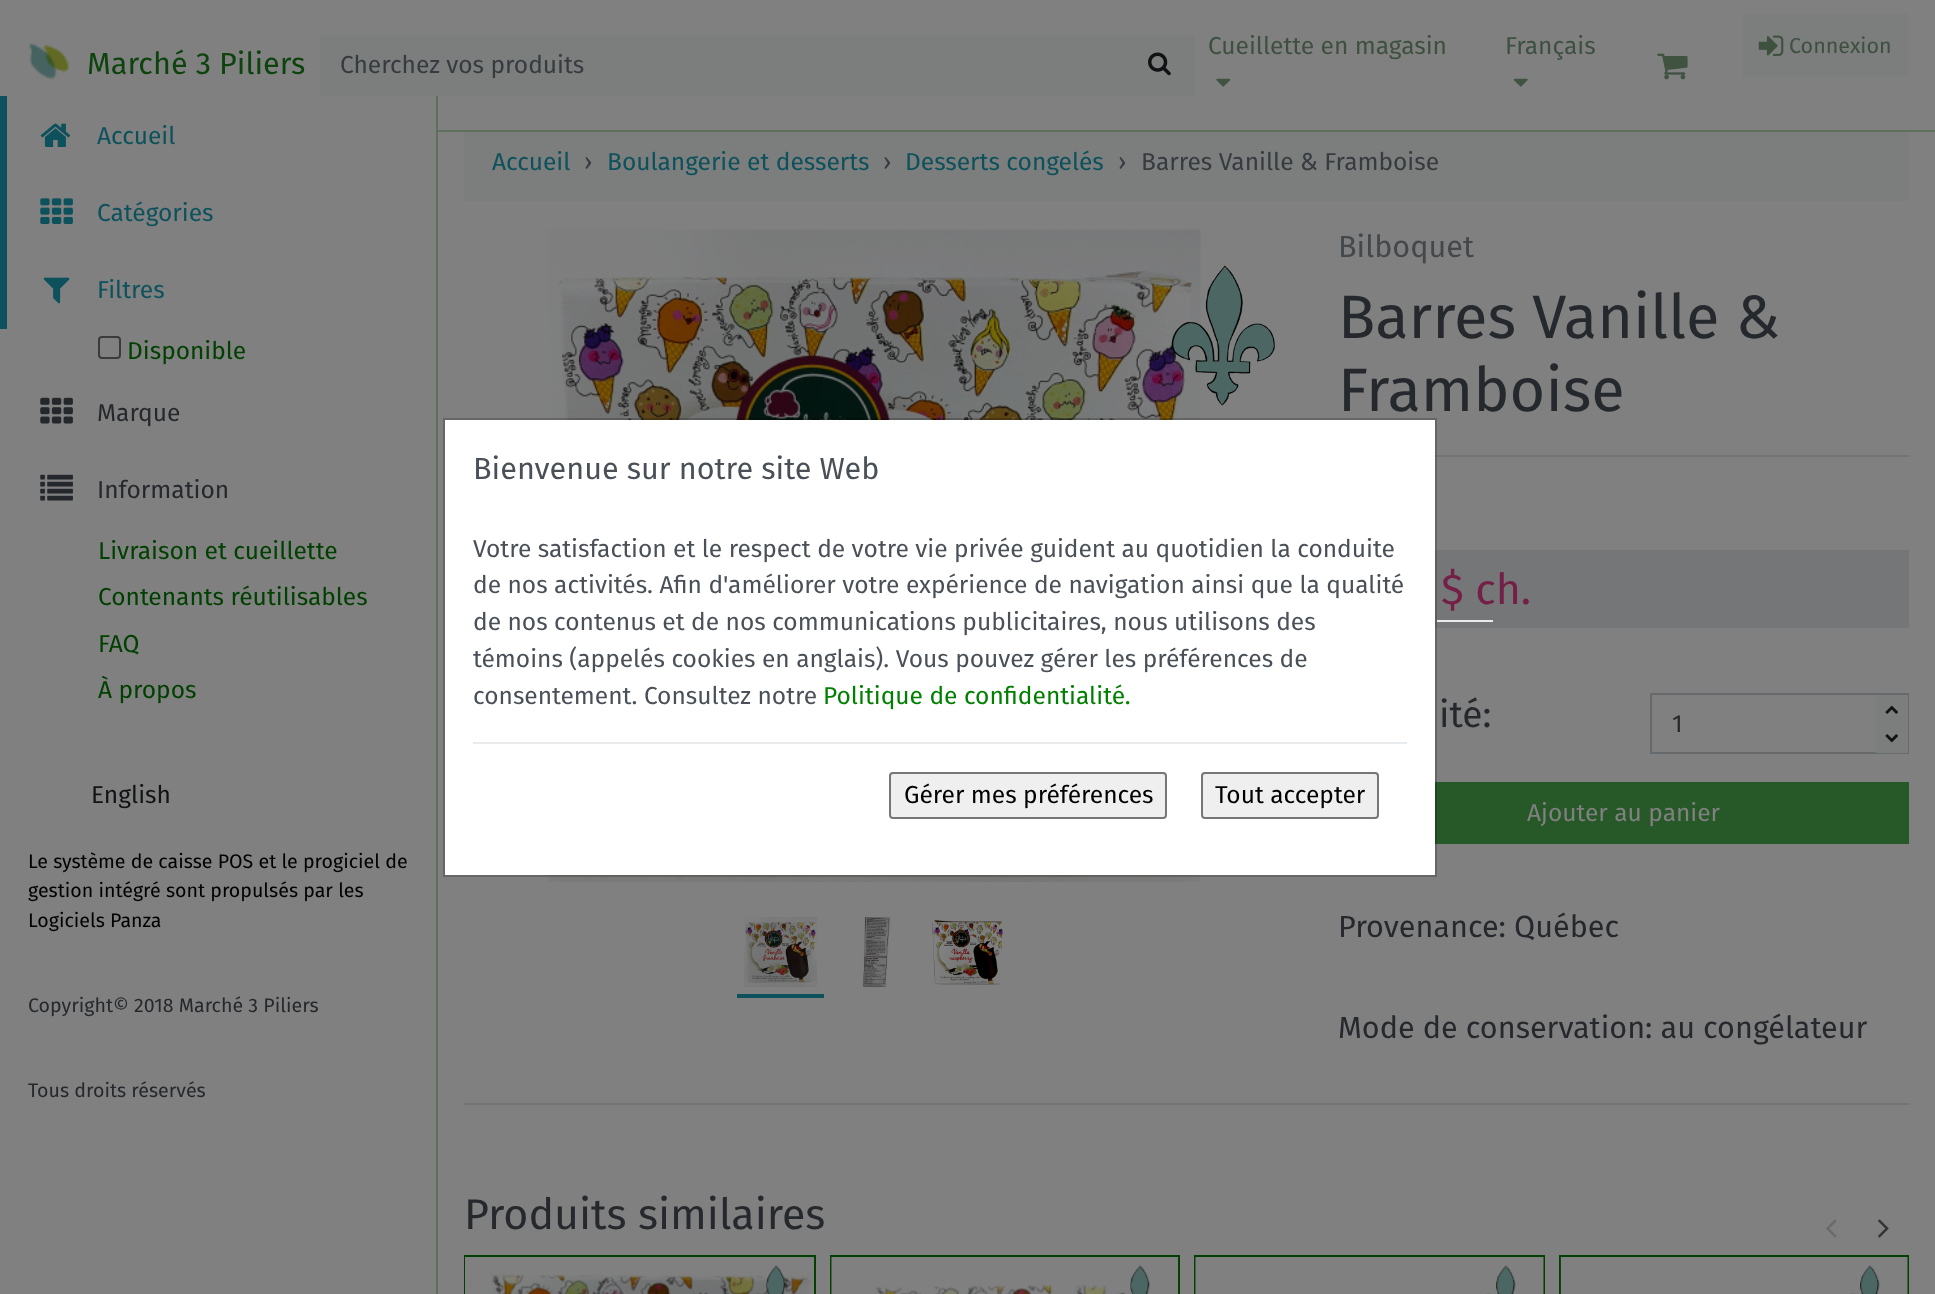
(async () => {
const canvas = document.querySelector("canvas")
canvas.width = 1935
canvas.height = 1294
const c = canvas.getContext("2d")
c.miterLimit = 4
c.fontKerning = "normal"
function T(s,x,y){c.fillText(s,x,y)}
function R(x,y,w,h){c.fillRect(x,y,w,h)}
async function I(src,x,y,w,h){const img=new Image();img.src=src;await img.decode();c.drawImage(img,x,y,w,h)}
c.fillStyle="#808080"
R(0,0,1935,1294)
c.fillStyle="#5e6f5e"
R(438,130,1497,2)
await I("1.png",29,43,40,37)
c.font="30.6px Fira Sans"
c.fillStyle="#0d430d"
T("Marché 3 Piliers",87,74)
c.fillStyle="#7c7d7d"
R(320,35,874,61)
c.font="24.5px Fira Sans"
c.fillStyle="#363b3f"
T("Cherchez vos produits",340,73)
await I("2.png",1148,52,23,24)
c.fillStyle="#3e503f"
T("Cueillette en magasin",1208,54)
await I("3.png",1216,78,15,9)
T("Français",1505,54)
await I("4.png",1513,78,15,9)
c.fillStyle="#7c7d7d"
R(1743,14,165,63)
await I("5.png",1758,35,26,21)
c.font="21.5px Fira Sans"
c.fillStyle="#3e503f"
T("Connexion",1789,53)
await I("6.png",1657,53,31,27)
c.fillStyle="#5e6f5e"
R(436,96,2,1198)
c.fillStyle="#0c515c"
R(0,96,7,233)
await I("7.png",40,123,31,24)
c.font="24.5px Fira Sans"
T("Accueil",97,144)
await I("8.png",40,198,33,26)
T("Catégories",97,221)
await I("9.png",43,277,27,27)
T("Filtres",97,298)
c.beginPath()
c.roundRect(99,337,21,21,3)
c.strokeStyle="#3b3b3b"
c.lineWidth=2
c.stroke()
c.fillStyle="#004000"
T("Disponible",127,359)
await I("10.png",40,397,33,27)
c.fillStyle="#25282c"
T("Marque",97,421)
await I("11.png",40,474,33,27)
T("Information",97,498)
c.fillStyle="#004000"
T("Livraison et cueillette",98,559)
T("Contenants réutilisables",98,605)
T("FAQ",98,652)
T("À propos",98,698)
c.fillStyle="#111315"
T("English",91,803)
c.font="19.6px Fira Sans"
c.fillStyle="#000"
T("Le système de caisse POS et le progiciel de",28,868)
T("gestion intégré sont propulsés par les",28,897)
T("Logiciels Panza",28,927)
c.fillStyle="#25282c"
T("Copyright© 2018 Marché 3 Piliers",28,1012)
T("Tous droits réservés",28,1097)
c.fillStyle="#7c7d7d"
R(464,132,1445,69)
c.font="24.5px Fira Sans"
c.fillStyle="#0c515c"
T("Accueil",492,170)
c.fillStyle="#363b3f"
T("›",584,170)
c.fillStyle="#0c515c"
T("Boulangerie et desserts",607,170)
c.fillStyle="#363b3f"
T("›",883,170)
c.fillStyle="#0c515c"
T("Desserts congelés",905,170)
c.fillStyle="#363b3f"
T("›",1118,170)
T("Barres Vanille & Framboise",1141,170)
await I("12.png",547,229,654,653)
await I("13.png",1171,265,104,141)
await I("14.png",744,917,74,70)
c.fillStyle="#0c515c"
R(737,994,87,4)
await I("15.png",862,917,29,70)
await I("16.png",932,920,71,65)
c.font="30.6px Fira Sans"
c.fillStyle="#43484d"
T("Bilboquet",1338,257)
c.font="61.25px Fira Sans"
c.fillStyle="#25282c"
T("Barres Vanille &",1338,338)
T("Framboise",1338,411)
c.fillStyle="#737373"
R(1435,455,474,2)
c.fillStyle="#757678"
R(1435,550,474,78)
c.font="42.9px Fira Sans"
c.fillStyle="#741f46"
T("$ ch.",1441,604)
c.font="37px Fira Sans"
c.fillStyle="#25282c"
T("ité:",1439,727)
c.strokeStyle="#676a6d"
c.strokeRect(1651,694,257,59)
c.font="24.5px Fira Sans"
T("1",1672,732)
c.fillStyle="#7c7d7d"
R(1876,695,32,58)
await I("17.png",1885,705,13,9)
await I("18.png",1885,734,13,9)
c.fillStyle="#265828"
R(1435,782,474,62)
c.fillStyle="#808080"
T("Ajouter au panier",1527,821)
c.font="30.6px Fira Sans"
c.fillStyle="#25282c"
T("Provenance: Québec",1338,937)
T("Mode de conservation: au congélateur",1338,1038)
c.fillStyle="#737373"
R(464,1103,1445,2)
c.font="42.9px Fira Sans"
c.fillStyle="#25282c"
T("Produits similaires",464,1229)
await I("19.png",1826,1219,11,19)
await I("20.png",1878,1219,11,19)
c.strokeStyle="#004000"
c.strokeRect(465,1256,350,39)
await I("21.png",465,1257,350,37)
await I("22.png",756,1265,30,29)
c.strokeRect(831,1256,348,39)
await I("23.png",830,1257,349,37)
await I("24.png",1120,1265,30,29)
c.strokeRect(1195,1256,349,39)
await I("25.png",1194,1257,350,37)
await I("26.png",1486,1265,30,29)
c.strokeRect(1560,1256,348,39)
await I("27.png",1560,1257,348,37)
await I("26.png",1850,1265,30,29)
c.fillStyle="#fff"
R(445,420,990,455)
c.strokeStyle="#00000033"
c.strokeRect(444,419,992,457)
c.font="30.6px Fira Sans"
c.fillStyle="#495057"
T("Bienvenue sur notre site Web",473,479)
c.font="24.5px Fira Sans"
T("Votre satisfaction et le respect de votre vie privée guident au quotidien la conduite",473,557)
T("de nos activités. Afin d'améliorer votre expérience de navigation ainsi que la qualité",473,593)
T("de nos contenus et de nos communications publicitaires, nous utilisons des",473,630)
T("témoins (appelés cookies en anglais). Vous pouvez gérer les préférences de",473,667)
T("consentement. Consultez notre",473,704)
c.fillStyle="#008000"
T("Politique de confidentialité.",823,704)
c.fillStyle="#e9ecef"
R(473,742,934,2)
c.fillStyle="#efefef"
c.beginPath()
c.roundRect(890,773,276,45,3)
c.fill()
c.strokeStyle="#767676"
c.stroke()
c.fillStyle="#000"
T("Gérer mes préférences",904,803)
c.fillStyle="#efefef"
c.beginPath()
c.roundRect(1202,773,176,45,3)
c.fill()
c.stroke()
c.fillStyle="#000"
T("Tout accepter",1215,803)
c.fillStyle="#e9ecef"
R(1437,620,56,2)
})()
